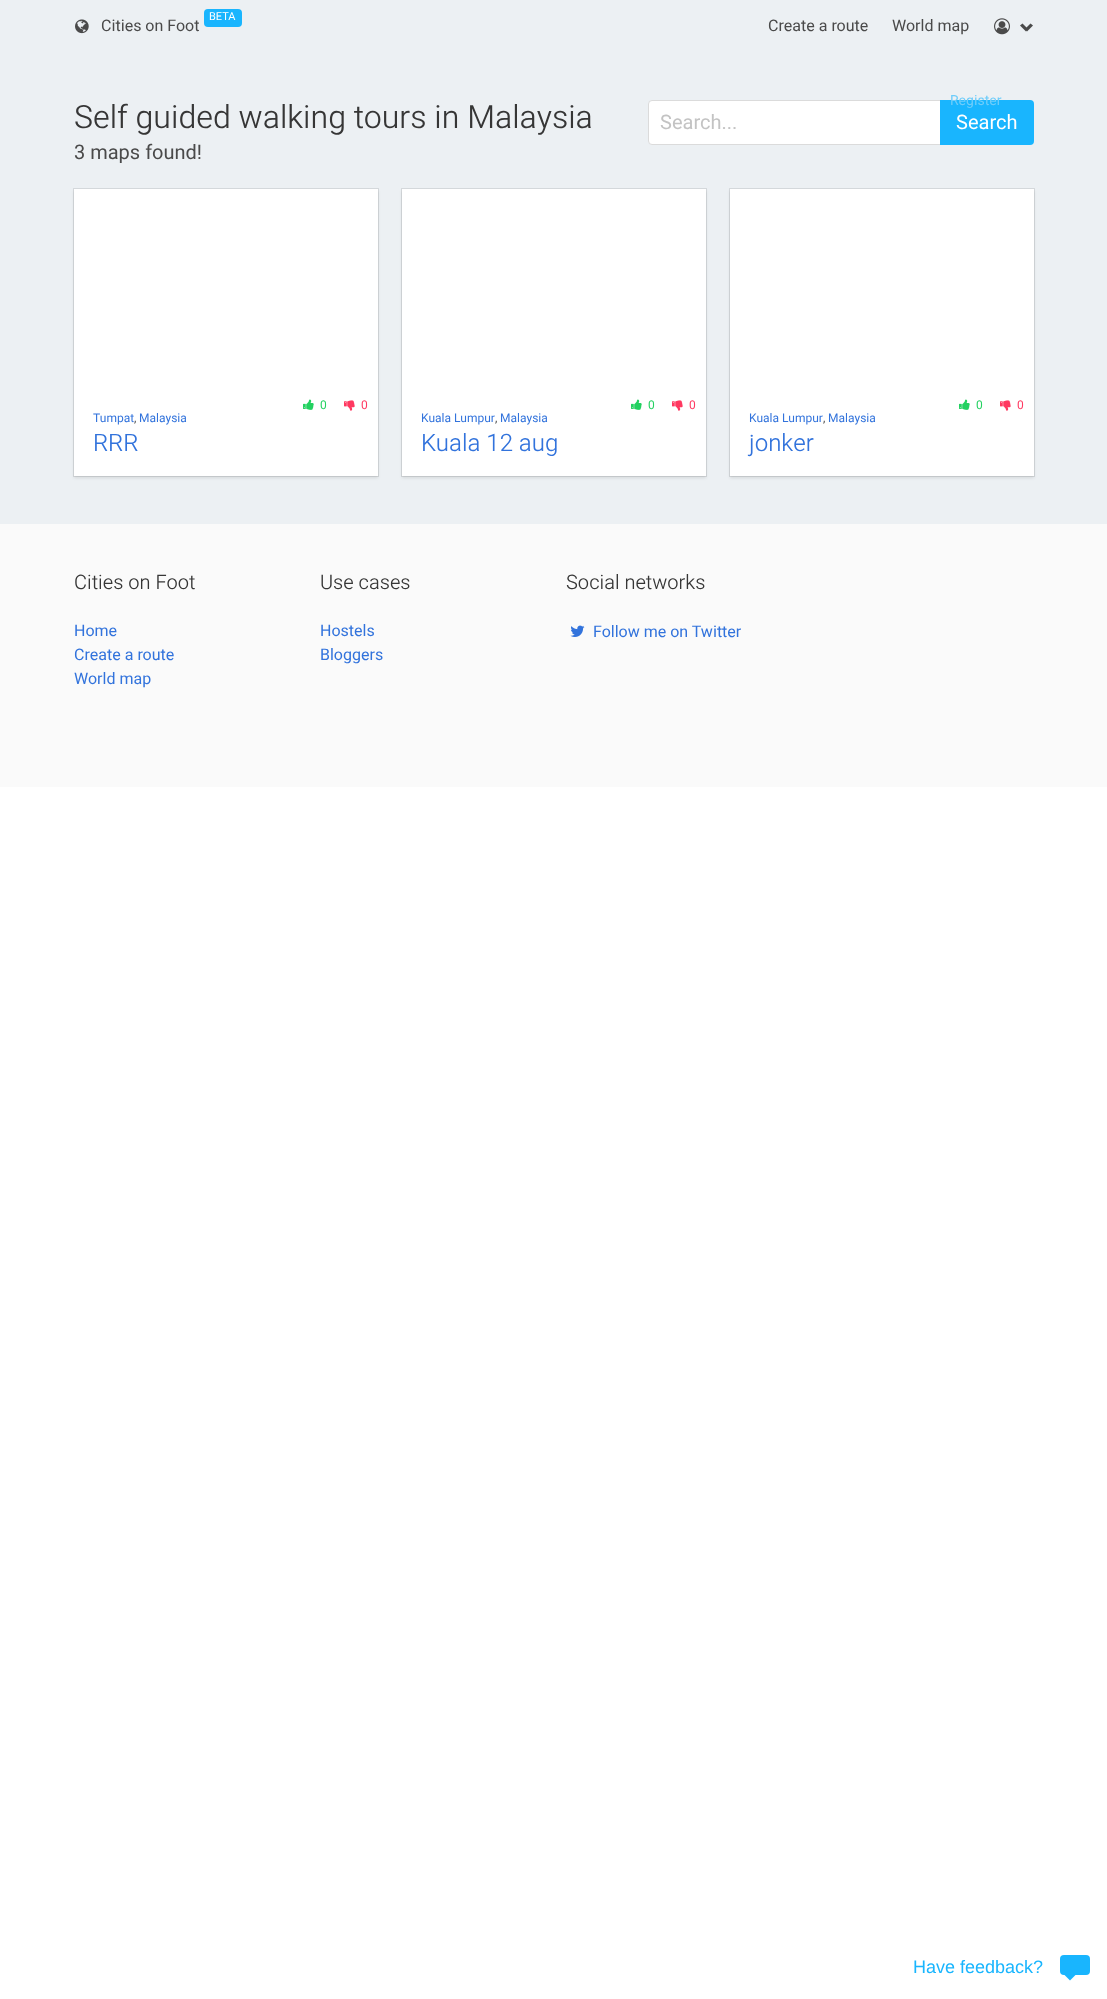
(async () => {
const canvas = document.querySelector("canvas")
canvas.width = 1107
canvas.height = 1999
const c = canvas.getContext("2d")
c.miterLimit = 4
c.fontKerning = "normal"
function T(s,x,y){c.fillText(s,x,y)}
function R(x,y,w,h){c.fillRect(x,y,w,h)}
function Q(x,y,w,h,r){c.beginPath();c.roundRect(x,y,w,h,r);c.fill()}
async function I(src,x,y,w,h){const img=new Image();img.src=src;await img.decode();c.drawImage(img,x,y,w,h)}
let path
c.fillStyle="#fff"
R(0,0,1107,1999)
c.fillStyle="#ecf0f3"
R(0,0,1107,524)
c.fillStyle="#19b5fe"
Q(204,9,38,18,4)
c.font="11px Heebo"
c.fillStyle="#fff"
T("BETA",209,20)
await I("1.png",75,19,14,15)
c.font="16px Heebo"
c.fillStyle="#4a4a4a"
T("Cities on Foot",101,31)
T("Create a route",768,31)
T("World map",892,31)
await I("2.png",994,18,16,17)
path = new Path2D("M1025 29l5.5-5.5l2.5 2l-6 6z")
c.fill(path)
path = new Path2D("M1020 25.5l2.5-2l5.5 5.5l-2 2.5z")
c.fill(path)
c.fillStyle="#fff"
c.beginPath()
c.roundRect(648.5,100.5,292,44,[3.5,0,0,3.5])
c.fill()
c.strokeStyle="#dbdbdb"
c.stroke()
c.fillStyle="#19b5fe"
c.beginPath()
c.roundRect(940,100,94,45,[0,4,4,0])
c.fill()
c.font="14px Heebo"
c.fillStyle="#6fcdfa"
T("Register",950,105)
c.font="300 32px Heebo"
c.fillStyle="#363636"
T("Self guided walking tours in Malaysia",74,128)
c.font="20px Heebo"
c.fillStyle="#4a4a4a"
T("3 maps found!",74,159)
c.fillStyle="#c3c3c3"
T("Search...",660,129)
c.fillStyle="#fff"
T("Search",956,129)
c.strokeStyle="#d5d9dc"
c.strokeRect(73.5,188.5,305,288)
c.fillStyle="#0a0a0a1a"
c.filter="blur(1.5px)"
c.beginPath()
c.rect(74,191,304,287)
c.fill()
c.filter="none"
c.fillStyle="#fff"
R(74,189,304,287)
await I("3.png",303,399,11,11)
c.font="12px Heebo"
c.fillStyle="#23d160"
T("0",320,409)
await I("4.png",344,400,11,11)
c.fillStyle="#ff3860"
T("0",361,409)
c.fillStyle="#3273dc"
T("Tumpat",93,422)
c.fillStyle="#4a4a4a"
T(",",134,422)
c.fillStyle="#3273dc"
T("Malaysia",139,422)
c.font="300 24px Heebo"
T("RRR",93,451)
c.strokeRect(401.5,188.5,305,288)
c.fillStyle="#0a0a0a1a"
c.filter="blur(1.5px)"
c.beginPath()
c.rect(402,191,304,287)
c.fill()
c.filter="none"
c.fillStyle="#fff"
R(402,189,304,287)
await I("3.png",631,399,11,11)
c.font="12px Heebo"
c.fillStyle="#23d160"
T("0",648,409)
await I("4.png",672,400,11,11)
c.fillStyle="#ff3860"
T("0",689,409)
c.fillStyle="#3273dc"
T("Kuala Lumpur",421,422)
c.fillStyle="#4a4a4a"
T(",",495,422)
c.fillStyle="#3273dc"
T("Malaysia",500,422)
c.font="300 24px Heebo"
T("Kuala 12 aug",421,451)
c.strokeRect(729.5,188.5,305,288)
c.fillStyle="#0a0a0a1a"
c.filter="blur(1.5px)"
c.beginPath()
c.rect(730,191,304,287)
c.fill()
c.filter="none"
c.fillStyle="#fff"
R(730,189,304,287)
await I("3.png",959,399,11,11)
c.font="12px Heebo"
c.fillStyle="#23d160"
T("0",976,409)
await I("4.png",1000,400,11,11)
c.fillStyle="#ff3860"
T("0",1017,409)
c.fillStyle="#3273dc"
T("Kuala Lumpur",749,422)
c.fillStyle="#4a4a4a"
T(",",823,422)
c.fillStyle="#3273dc"
T("Malaysia",828,422)
c.font="300 24px Heebo"
T("jonker",749,451)
c.fillStyle="#fafafa"
R(0,524,1107,263)
c.font="300 20px Heebo"
c.fillStyle="#363636"
T("Cities on Foot",74,589)
c.font="16px Heebo"
c.fillStyle="#3273dc"
T("Home",74,636)
T("Create a route",74,660)
T("World map",74,684)
c.font="300 20px Heebo"
c.fillStyle="#363636"
T("Use cases",320,589)
c.font="16px Heebo"
c.fillStyle="#3273dc"
T("Hostels",320,636)
T("Bloggers",320,660)
c.font="300 20px Heebo"
c.fillStyle="#363636"
T("Social networks",566,589)
await I("5.png",570,625,15,12)
c.font="16px Heebo"
c.fillStyle="#3273dc"
T("Follow me on Twitter",593,637)
c.font="18px Liberation Sans"
c.fillStyle="#19b5fe"
T("Have feedback?",913,1973)
Q(1060,1955,30,20,4)
path = new Path2D("M1064.5 1975l5.5-5.5l5.5 5.5l-5.5 5.5z")
c.fill(path)
})()
